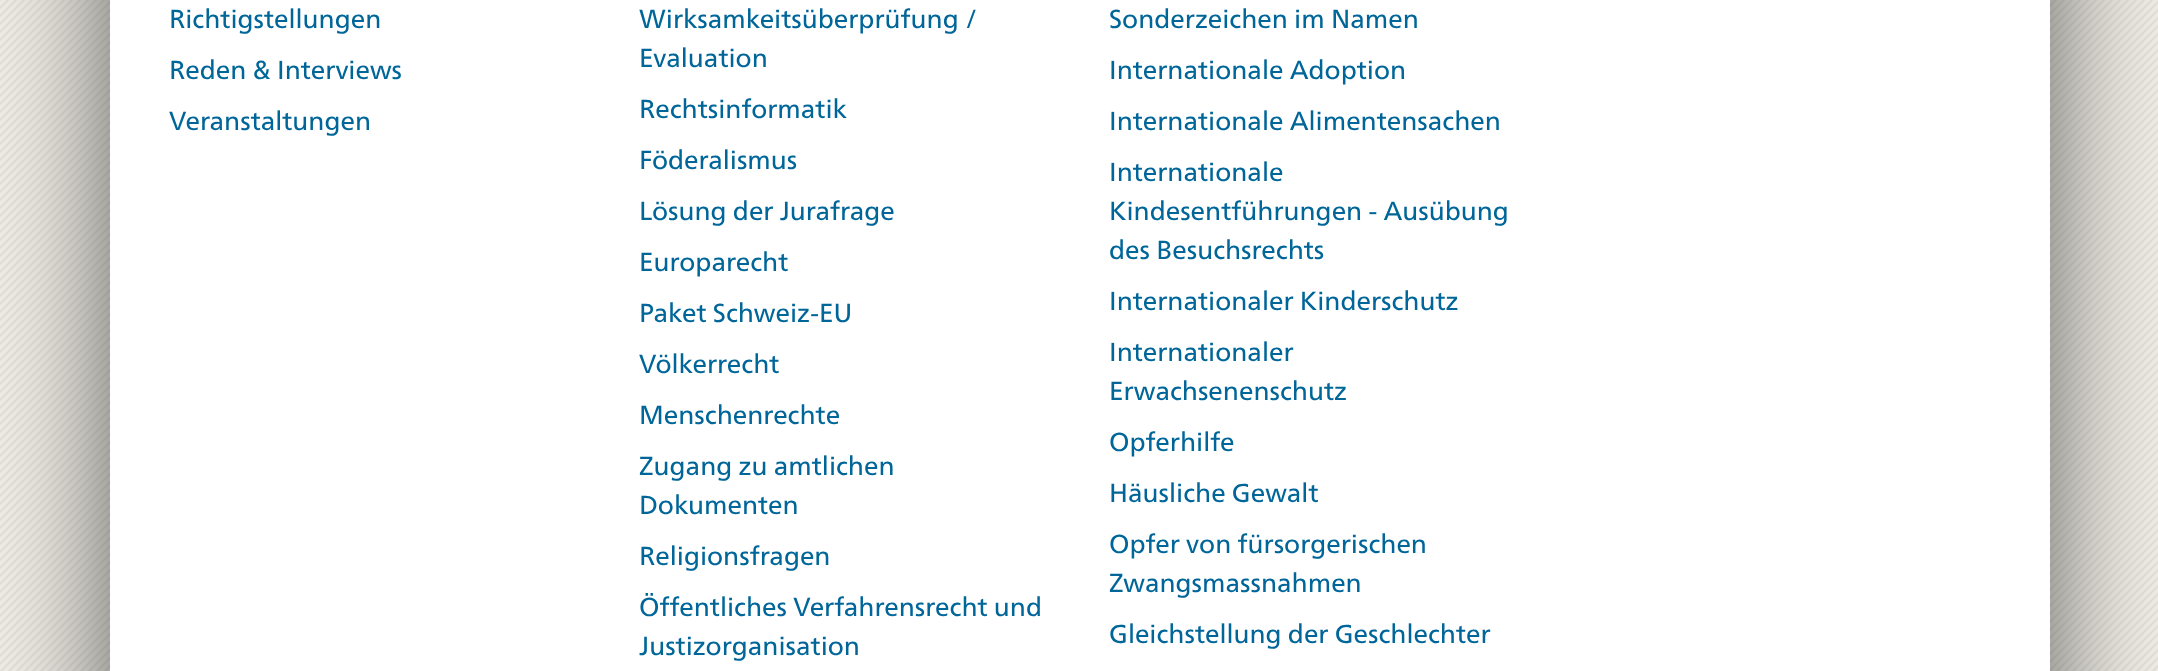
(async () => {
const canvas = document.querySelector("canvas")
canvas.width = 2158
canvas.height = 671
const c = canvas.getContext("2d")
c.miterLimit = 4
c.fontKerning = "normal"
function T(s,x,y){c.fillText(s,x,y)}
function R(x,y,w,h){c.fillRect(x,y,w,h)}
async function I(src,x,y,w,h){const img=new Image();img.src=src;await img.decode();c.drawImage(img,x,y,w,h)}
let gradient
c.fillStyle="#fff"
R(0,0,2158,671)
await I("1.png",0,0,2158,671)
c.fillStyle="#00000099"
c.filter="blur(60px)"
c.beginPath()
c.rect(110,-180,1940,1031)
c.fill()
c.filter="none"
gradient = c.createLinearGradient(1080,-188,1080,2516)
gradient.addColorStop(0,"#f5f5f5")
gradient.addColorStop(.06,"#fff")
c.fillStyle = gradient
R(110,0,1940,671)
c.font="26px 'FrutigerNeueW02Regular'"
c.fillStyle="#069"
T("Richtigstellungen",169,28)
T("Reden & Interviews",169,79)
T("Veranstaltungen",169,130)
T("Wirksamkeitsüberprüfung /",639,28)
T("Evaluation",639,67)
T("Rechtsinformatik",639,118)
T("Föderalismus",639,169)
T("Lösung der Jurafrage",639,220)
T("Europarecht",639,271)
T("Paket Schweiz-EU",639,322)
T("Völkerrecht",639,373)
T("Menschenrechte",639,424)
T("Zugang zu amtlichen",639,475)
T("Dokumenten",639,514)
T("Religionsfragen",639,565)
T("Öffentliches Verfahrensrecht und",639,616)
T("Justizorganisation",639,655)
T("Sonderzeichen im Namen",1109,28)
T("Internationale Adoption",1109,79)
T("Internationale Alimentensachen",1109,130)
T("Internationale",1109,181)
T("Kindesentführungen - Ausübung",1109,220)
T("des Besuchsrechts",1109,259)
T("Internationaler Kinderschutz",1109,310)
T("Internationaler",1109,361)
T("Erwachsenenschutz",1109,400)
T("Opferhilfe",1109,451)
T("Häusliche Gewalt",1109,502)
T("Opfer von fürsorgerischen",1109,553)
T("Zwangsmassnahmen",1109,592)
T("Gleichstellung der Geschlechter",1109,643)
})()
